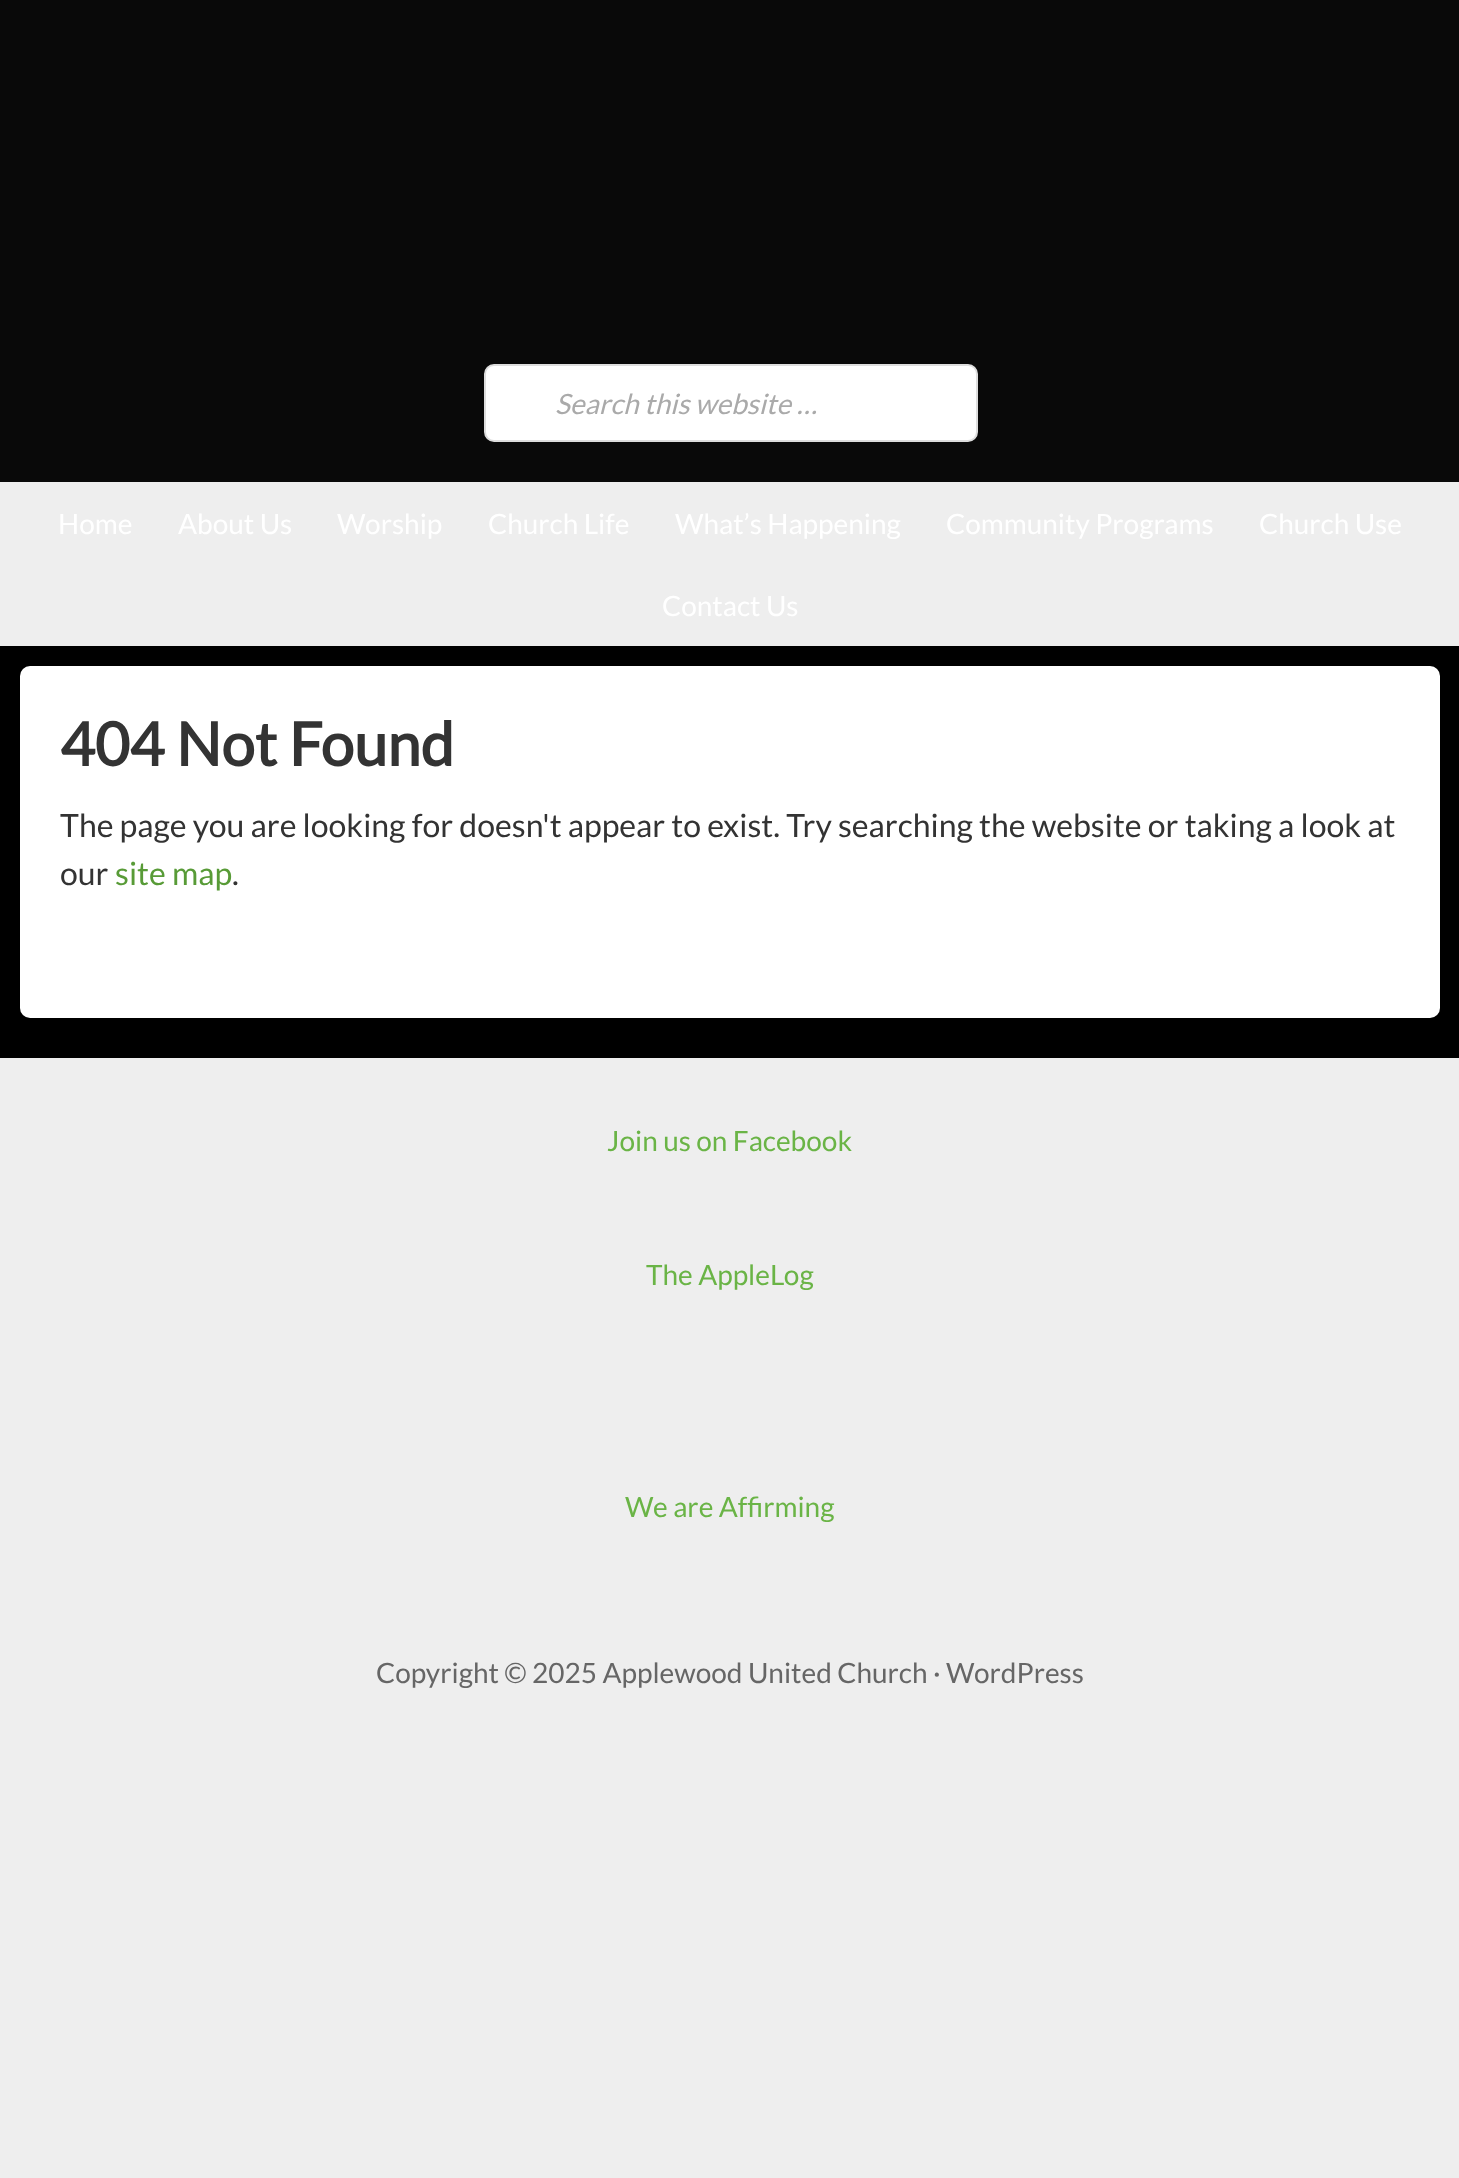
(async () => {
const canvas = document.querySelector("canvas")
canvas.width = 1459
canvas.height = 2178
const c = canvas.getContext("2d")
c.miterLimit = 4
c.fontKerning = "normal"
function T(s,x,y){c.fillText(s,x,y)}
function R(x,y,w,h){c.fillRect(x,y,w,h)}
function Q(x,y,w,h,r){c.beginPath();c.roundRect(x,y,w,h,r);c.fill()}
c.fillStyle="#eee"
R(0,0,1459,2178)
c.fillStyle="#090909"
R(0,0,1459,482)
c.fillStyle="#fff"
c.beginPath()
c.roundRect(485,365,492,76,9)
c.fill()
c.strokeStyle="#ddd"
c.lineWidth=2
c.stroke()
c.font="italic 28px Lato"
c.fillStyle="#aaa"
T("Search this website …",555,414)
c.font="28px Lato"
c.fillStyle="#fff"
T("Home",58,534)
T("About Us",178,534)
T("Worship",337,534)
T("Church Life",488,534)
T("What’s Happening",675,534)
T("Community Programs",946,534)
T("Church Use",1259,534)
T("Contact Us",662,616)
c.fillStyle="#000"
R(0,646,1459,412)
c.fillStyle="#fff"
Q(20,666,1420,352,10)
c.font="bold 60px Lato"
c.fillStyle="#333"
T("404 Not Found",60,766)
c.font="32px Lato"
T("The page you are looking for doesn't appear to exist. Try searching the website or taking a look at",60,837)
T("our",60,885)
c.fillStyle="#589b37"
T("site map",115,885)
c.fillStyle="#333"
T(".",232,885)
c.font="28px Lato"
c.fillStyle="#6ab446"
T("Join us on Facebook",607,1151)
T("The AppleLog",646,1285)
T("We are Affirming",625,1517)
c.fillStyle="#666"
T("Copyright © 2025 Applewood United Church · WordPress",376,1683)
})()
